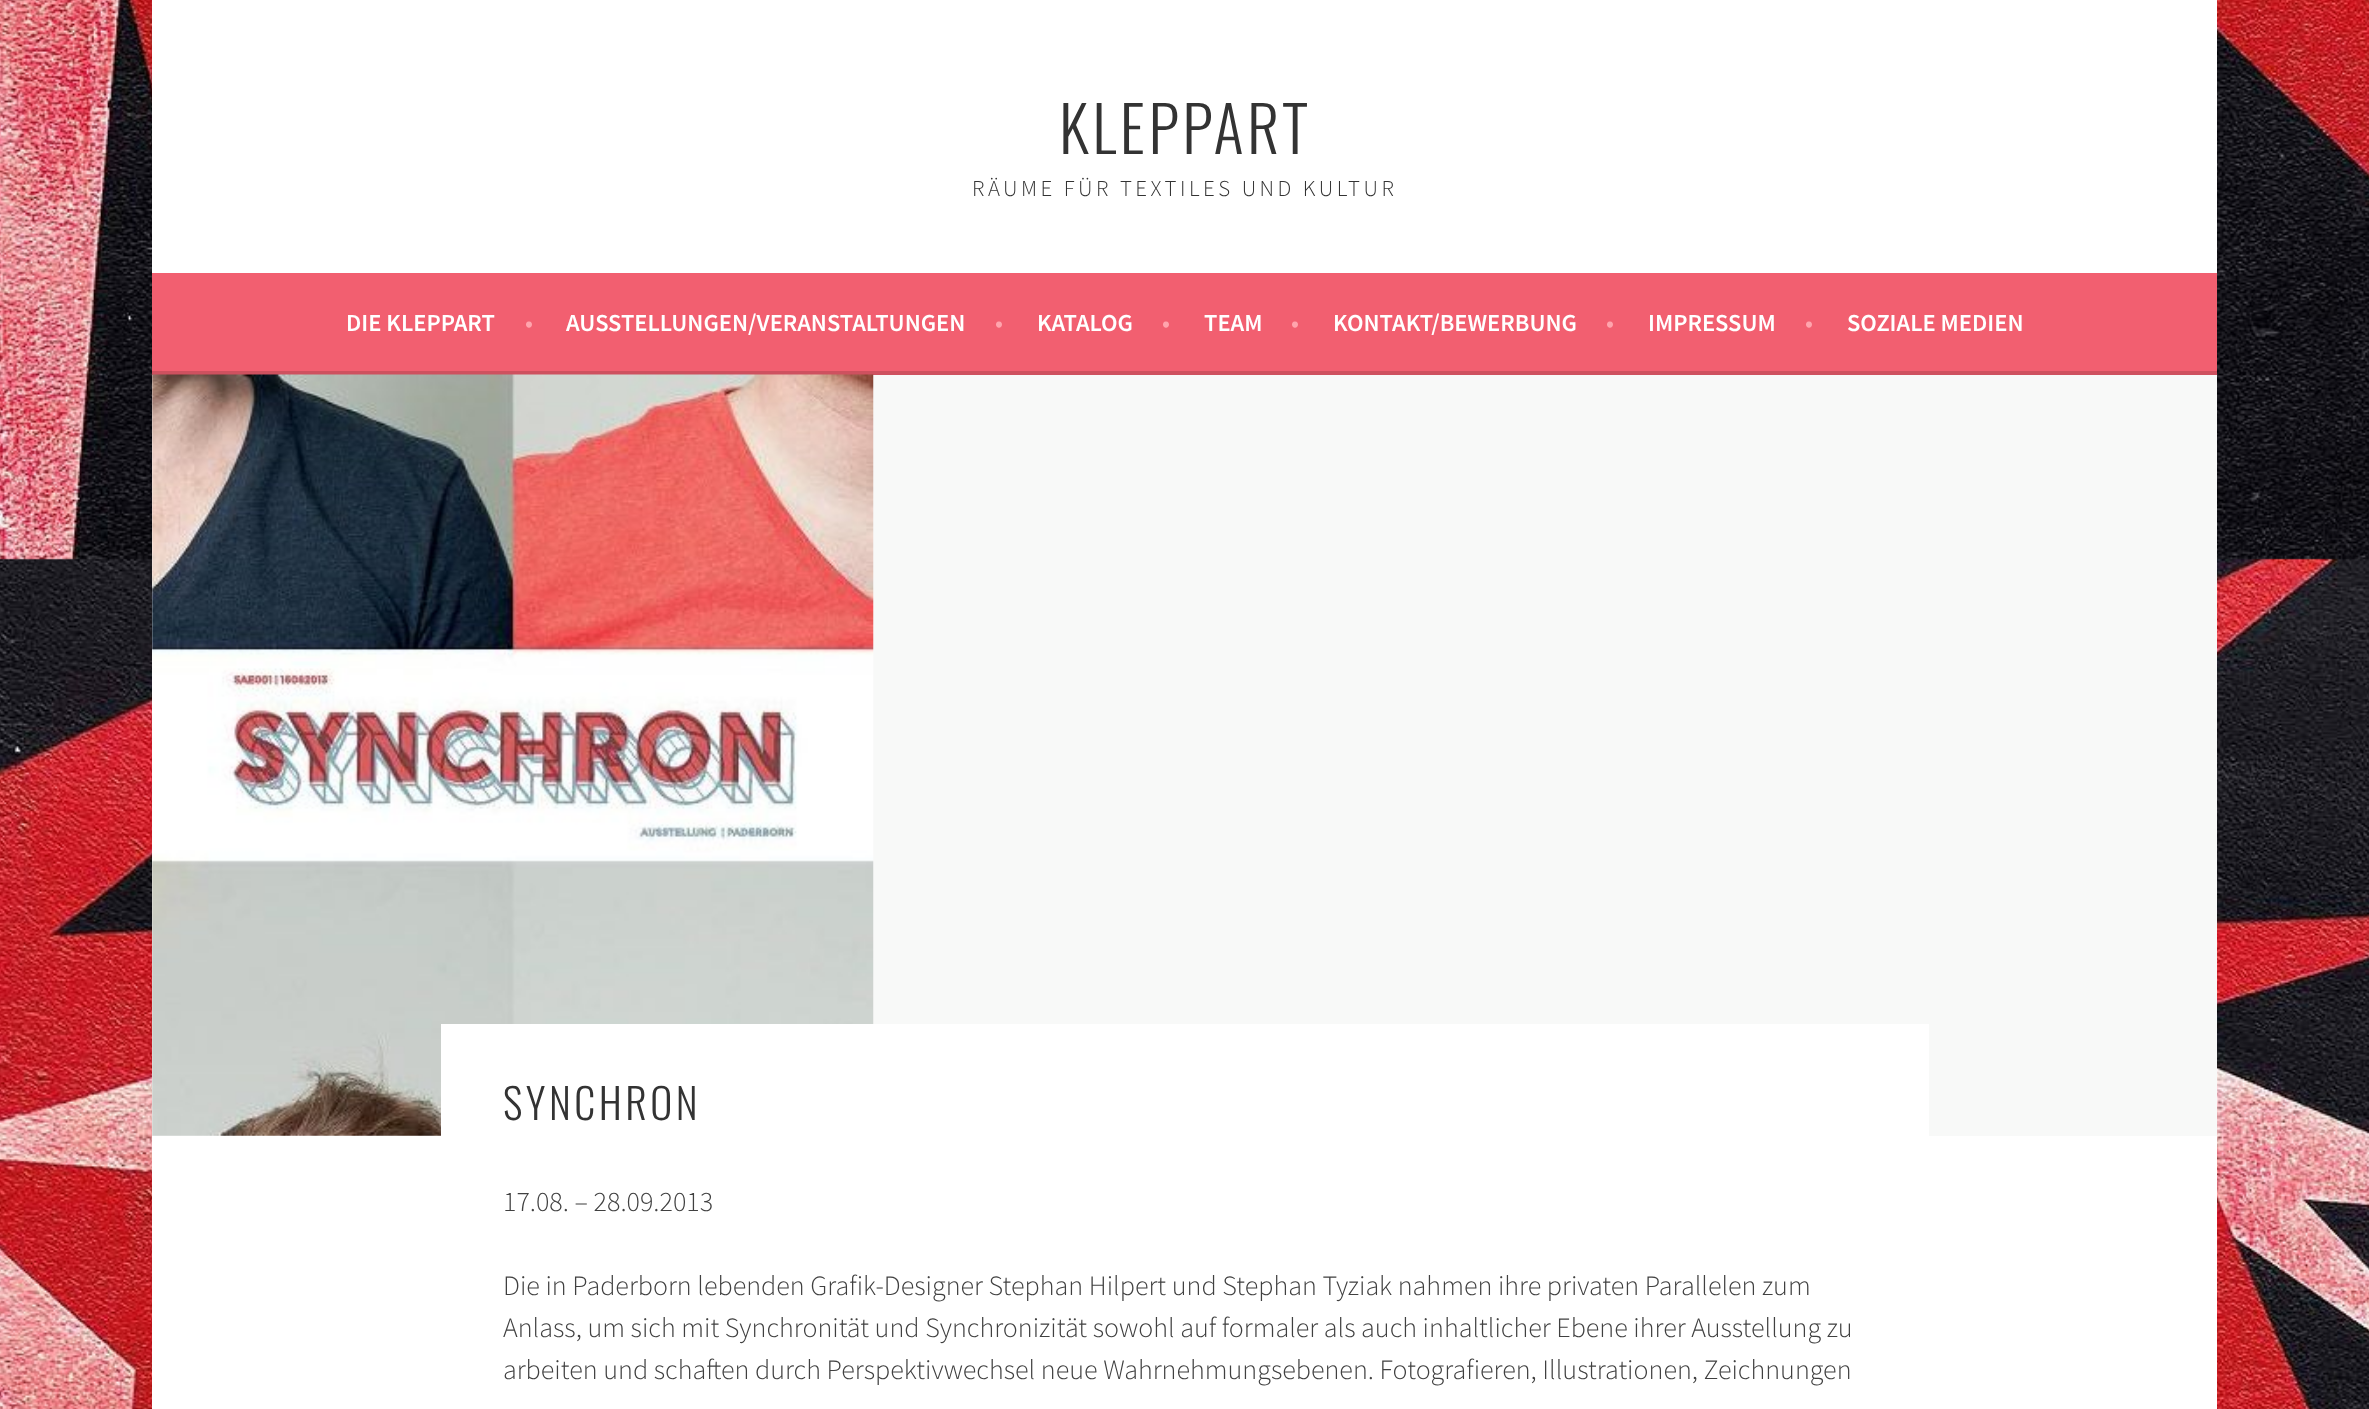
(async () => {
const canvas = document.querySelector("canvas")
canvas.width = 2369
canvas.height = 1409
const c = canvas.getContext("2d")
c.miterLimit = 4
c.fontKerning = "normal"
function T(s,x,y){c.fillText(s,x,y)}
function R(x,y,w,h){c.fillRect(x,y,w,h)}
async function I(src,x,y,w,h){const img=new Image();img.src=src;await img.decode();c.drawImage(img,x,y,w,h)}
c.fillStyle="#fff"
R(0,0,2369,1409)
await I("1.png",0,0,2369,1409)
R(152,0,2065,273)
c.letterSpacing="3.5px"
c.font="300 63px Oswald"
c.fillStyle="#333"
T("KLEPPART",1059,154)
c.font="300 22.75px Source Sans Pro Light"
T("RÄUME FÜR TEXTILES UND KULTUR",972,196)
c.fillStyle="#f25f70"
R(152,273,2065,98)
c.fillStyle="#ce515f"
R(152,371,2065,4)
c.letterSpacing="0px"
c.font="600 24.5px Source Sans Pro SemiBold"
c.fillStyle="#fff"
T("DIE KLEPPART",346,331)
c.fillStyle="#ffa4ad"
T("•",525,331)
c.fillStyle="#fff"
T("AUSSTELLUNGEN/VERANSTALTUNGEN",566,331)
c.fillStyle="#ffa4ad"
T("•",995,331)
c.fillStyle="#fff"
T("KATALOG",1037,331)
c.fillStyle="#ffa4ad"
T("•",1162,331)
c.fillStyle="#fff"
T("TEAM",1204,331)
c.fillStyle="#ffa4ad"
T("•",1291,331)
c.fillStyle="#fff"
T("KONTAKT/BEWERBUNG",1333,331)
c.fillStyle="#ffa4ad"
T("•",1606,331)
c.fillStyle="#fff"
T("IMPRESSUM",1648,331)
c.fillStyle="#ffa4ad"
T("•",1805,331)
c.fillStyle="#fff"
T("SOZIALE MEDIEN",1847,331)
R(152,1136,2065,273)
c.fillStyle="#f8f9f8"
R(152,375,2065,761)
await I("2.png",152,374,722,762)
c.fillStyle="#fff"
R(441,1024,1488,112)
c.letterSpacing="3.5px"
c.font="300 42px Oswald"
c.fillStyle="#333"
T("SYNCHRON",503,1120)
c.letterSpacing="0px"
c.font="300 28px Source Sans Pro Light"
c.fillStyle="#404040"
T("17.08. – 28.09.2013",503,1211)
T("Die in Paderborn lebenden Grafik-Designer Stephan Hilpert und Stephan Tyziak nahmen ihre privaten Parallelen zum",503,1295)
T("Anlass, um sich mit Synchronität und Synchronizität sowohl auf formaler als auch inhaltlicher Ebene ihrer Ausstellung zu",503,1337)
T("arbeiten und schaften durch Perspektivwechsel neue Wahrnehmungsebenen. Fotografieren, Illustrationen, Zeichnungen",503,1379)
})()
